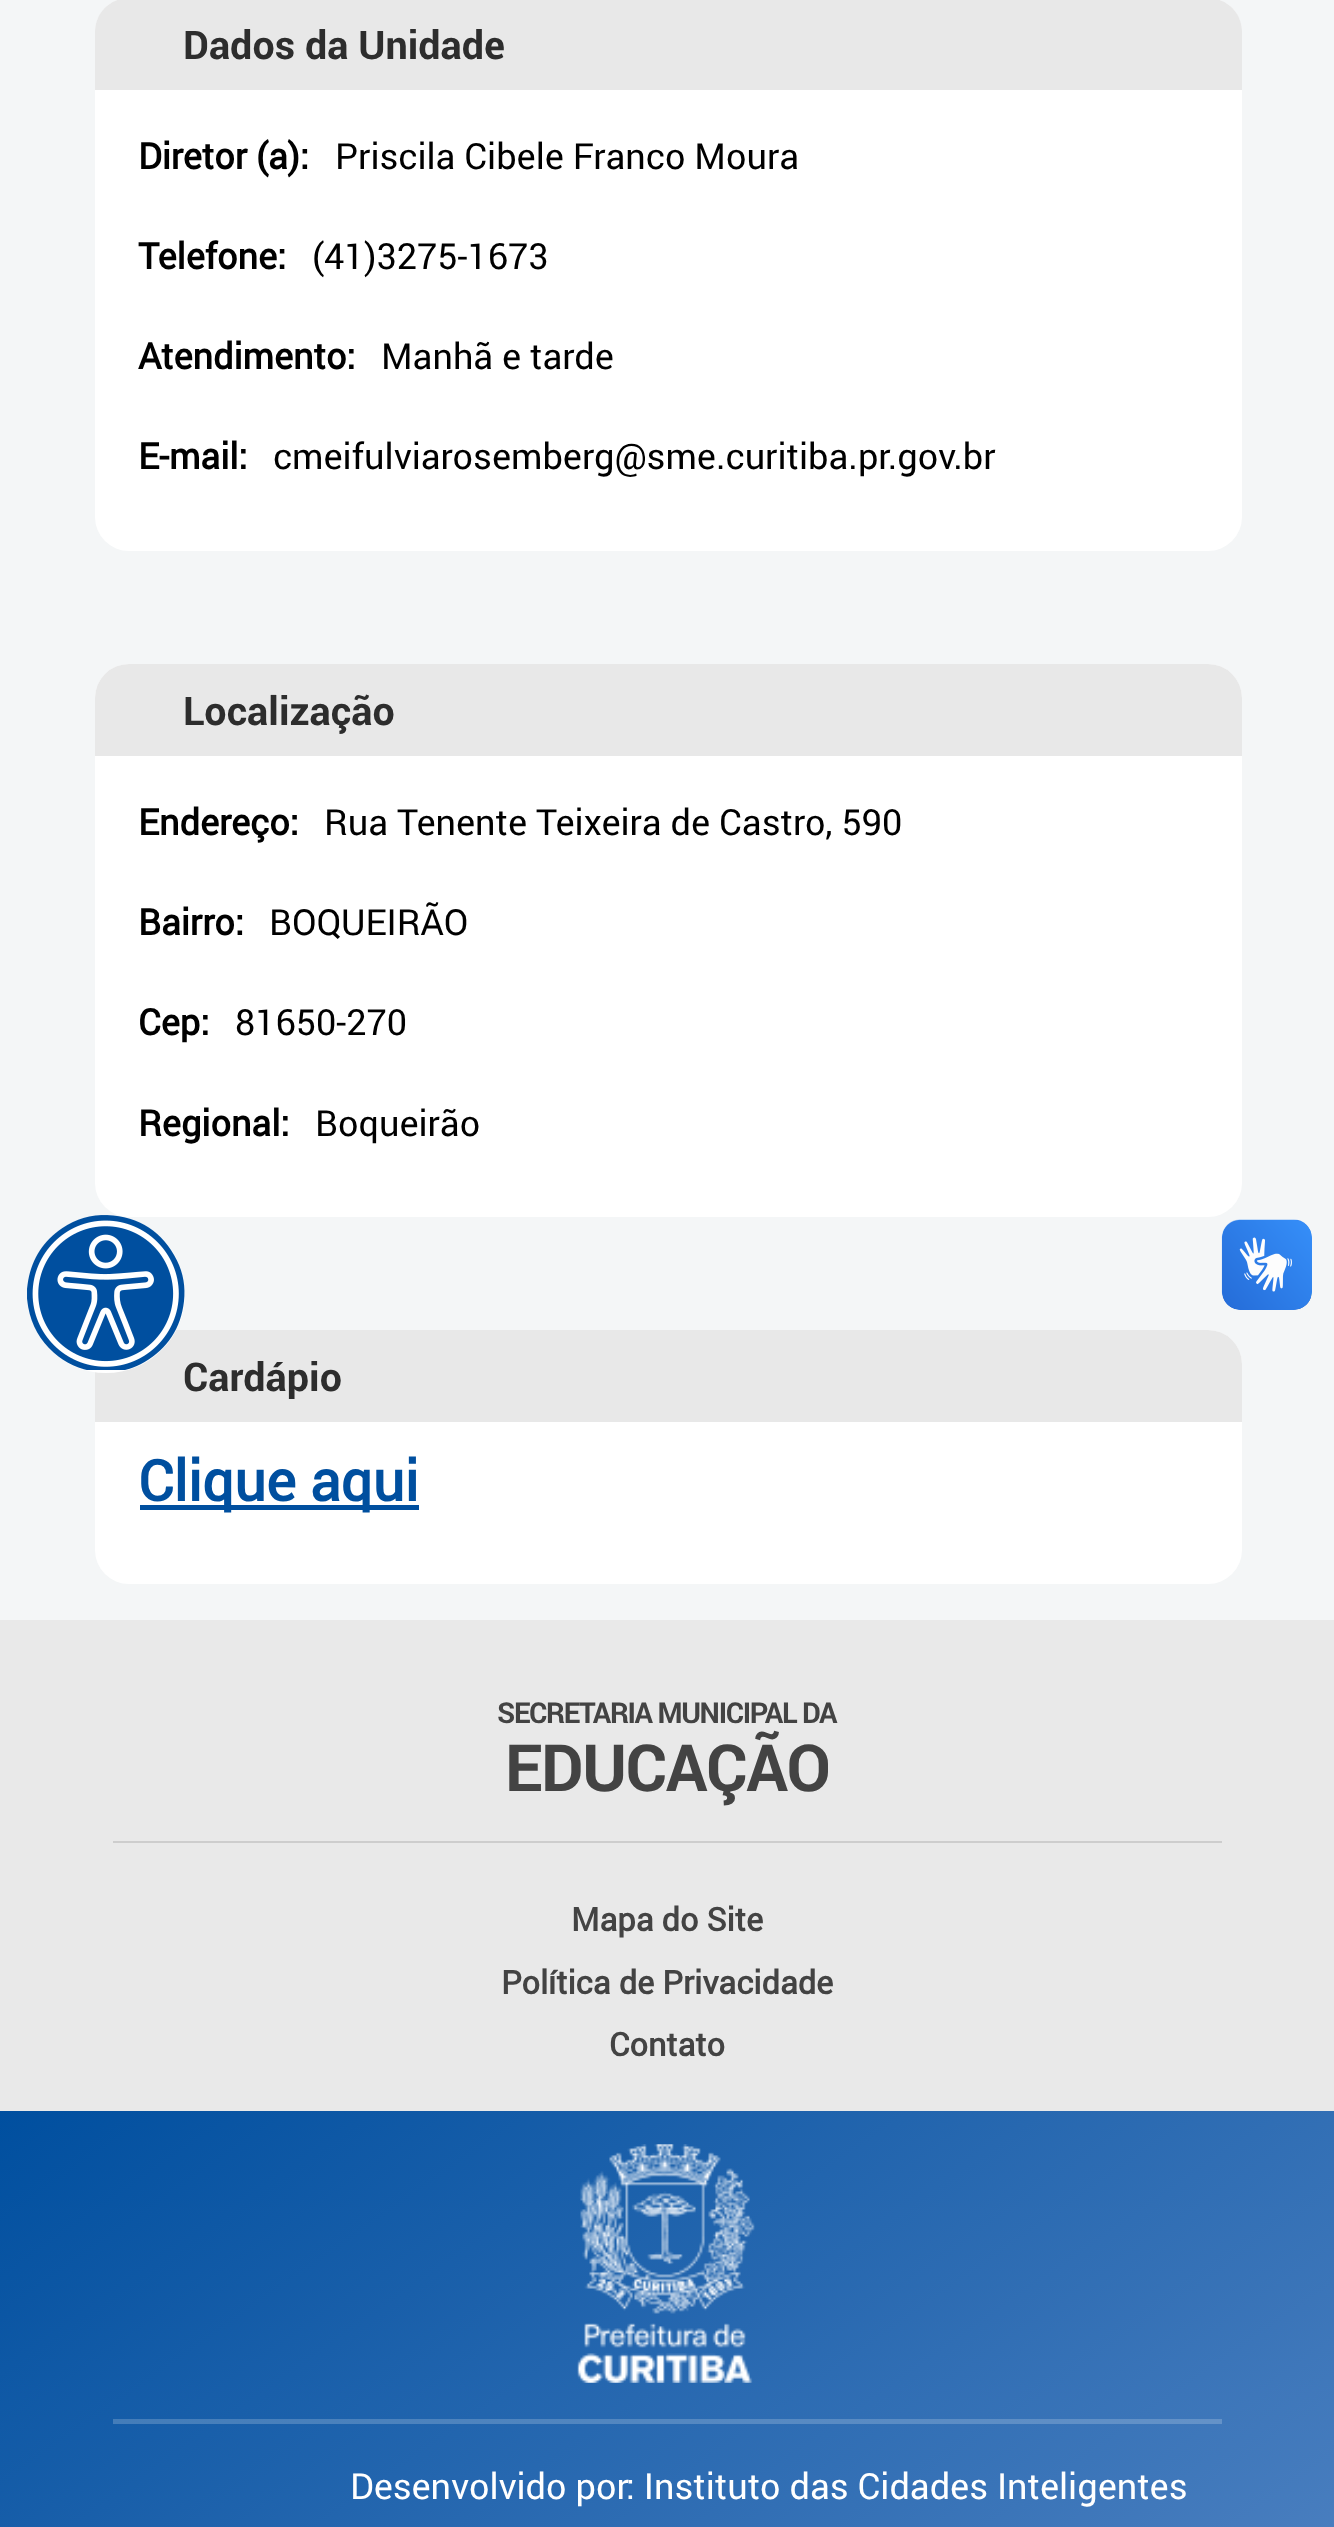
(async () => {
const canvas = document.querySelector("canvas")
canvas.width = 1334
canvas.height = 2527
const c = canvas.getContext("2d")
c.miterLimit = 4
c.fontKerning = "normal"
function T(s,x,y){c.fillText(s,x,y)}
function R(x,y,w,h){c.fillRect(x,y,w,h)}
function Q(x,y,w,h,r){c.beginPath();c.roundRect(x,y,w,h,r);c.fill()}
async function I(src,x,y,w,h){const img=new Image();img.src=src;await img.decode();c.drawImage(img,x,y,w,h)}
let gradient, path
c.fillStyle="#f4f6f7"
R(0,0,1334,2527)
c.fillStyle="#fff"
Q(95,664,1147,553,34)
Q(95,1330,1147,254,34)
c.fillStyle="#e8e8e8"
c.beginPath()
c.roundRect(95,1330,1147,92,[34,34,0,0])
c.fill()
c.fillStyle="#fff"
c.beginPath()
c.arc(106,1294,79,0,7)
c.fill()
await I("1.png",27,1215,158,155)
Q(95,-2,1147,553,34)
c.fillStyle="#e8e8e8"
path = new Path2D("M129-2h1079c19 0 34 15 34 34v58h-1147v-58c0-19 15-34 34-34z")
c.fill(path)
c.font="bold 39.5px Roboto"
c.fillStyle="#2d2d2d"
T("Dados da Unidade",183,59)
c.font="bold 36px 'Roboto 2'"
c.fillStyle="#000"
T("Diretor (a):",138,169)
c.font="36px Roboto"
T("Priscila Cibele Franco Moura",335,169)
c.font="bold 36px 'Roboto 2'"
T("Telefone:",138,269)
c.font="36px Roboto"
T("(41)3275-1673",312,269)
c.font="bold 36px 'Roboto 2'"
T("Atendimento:",138,369)
c.font="36px Roboto"
T("Manhã e tarde",381,369)
c.font="bold 36px 'Roboto 2'"
T("E-mail:",138,469)
c.font="36px Roboto"
T("cmeifulviarosemberg@sme.curitiba.pr.gov.br",273,469)
c.fillStyle="#e8e8e8"
c.beginPath()
c.roundRect(95,664,1147,92,[34,34,0,0])
c.fill()
c.font="bold 39.5px Roboto"
c.fillStyle="#2d2d2d"
T("Localização",183,725)
c.font="bold 36px 'Roboto 2'"
c.fillStyle="#000"
T("Endereço:",138,835)
c.font="36px Roboto"
T("Rua Tenente Teixeira de Castro, 590",324,835)
c.font="bold 36px 'Roboto 2'"
T("Bairro:",138,935)
c.font="36px Roboto"
T("BOQUEIRÃO",269,935)
c.font="bold 36px 'Roboto 2'"
T("Cep:",138,1035)
c.font="36px Roboto"
T("81650-270",235,1035)
c.font="bold 36px 'Roboto 2'"
T("Regional:",138,1136)
c.font="36px Roboto"
T("Boqueirão",315,1136)
c.font="bold 39.5px Roboto"
c.fillStyle="#2d2d2d"
T("Cardápio",183,1391)
c.fillStyle="#004f9f"
R(140,1505,279,5)
c.font="bold 56.25px 'Roboto 2'"
T("Clique aqui",138,1501)
c.fillStyle="#e9e9e9"
R(0,1620,1334,491)
c.fillStyle="#cdcdcd"
R(113,1841,1109,2)
c.letterSpacing="-1.35px"
c.font="bold 28.75px Roboto"
c.fillStyle="#434343"
T("SECRETARIA MUNICIPAL DA",497,1723)
c.font="bold 65px Roboto"
T("EDUCAÇÃO",505,1791)
c.letterSpacing="0px"
c.font="bold 32.4px 'Roboto 2'"
T("Mapa do Site",571,1931)
T("Política de Privacidade",501,1994)
T("Contato",609,2056)
gradient = c.createLinearGradient(345,1869,989,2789)
gradient.addColorStop(0,"#004f9f")
gradient.addColorStop(1,"#497ebf")
c.fillStyle = gradient
R(0,2111,1334,416)
gradient = c.createLinearGradient(345,1869,989,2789)
gradient.addColorStop(0,"#3372b2")
gradient.addColorStop(1,"#6d98cc")
c.fillStyle = gradient
R(113,2419,1109,5)
await I("2.png",577,2144,178,239)
c.font="36px Roboto"
c.fillStyle="#fff"
T("Desenvolvido por: Instituto das Cidades Inteligentes",350,2499)
await I("3.png",1221,1219,91,91)
await I("4.png",1222,1220,90,90)
})()
